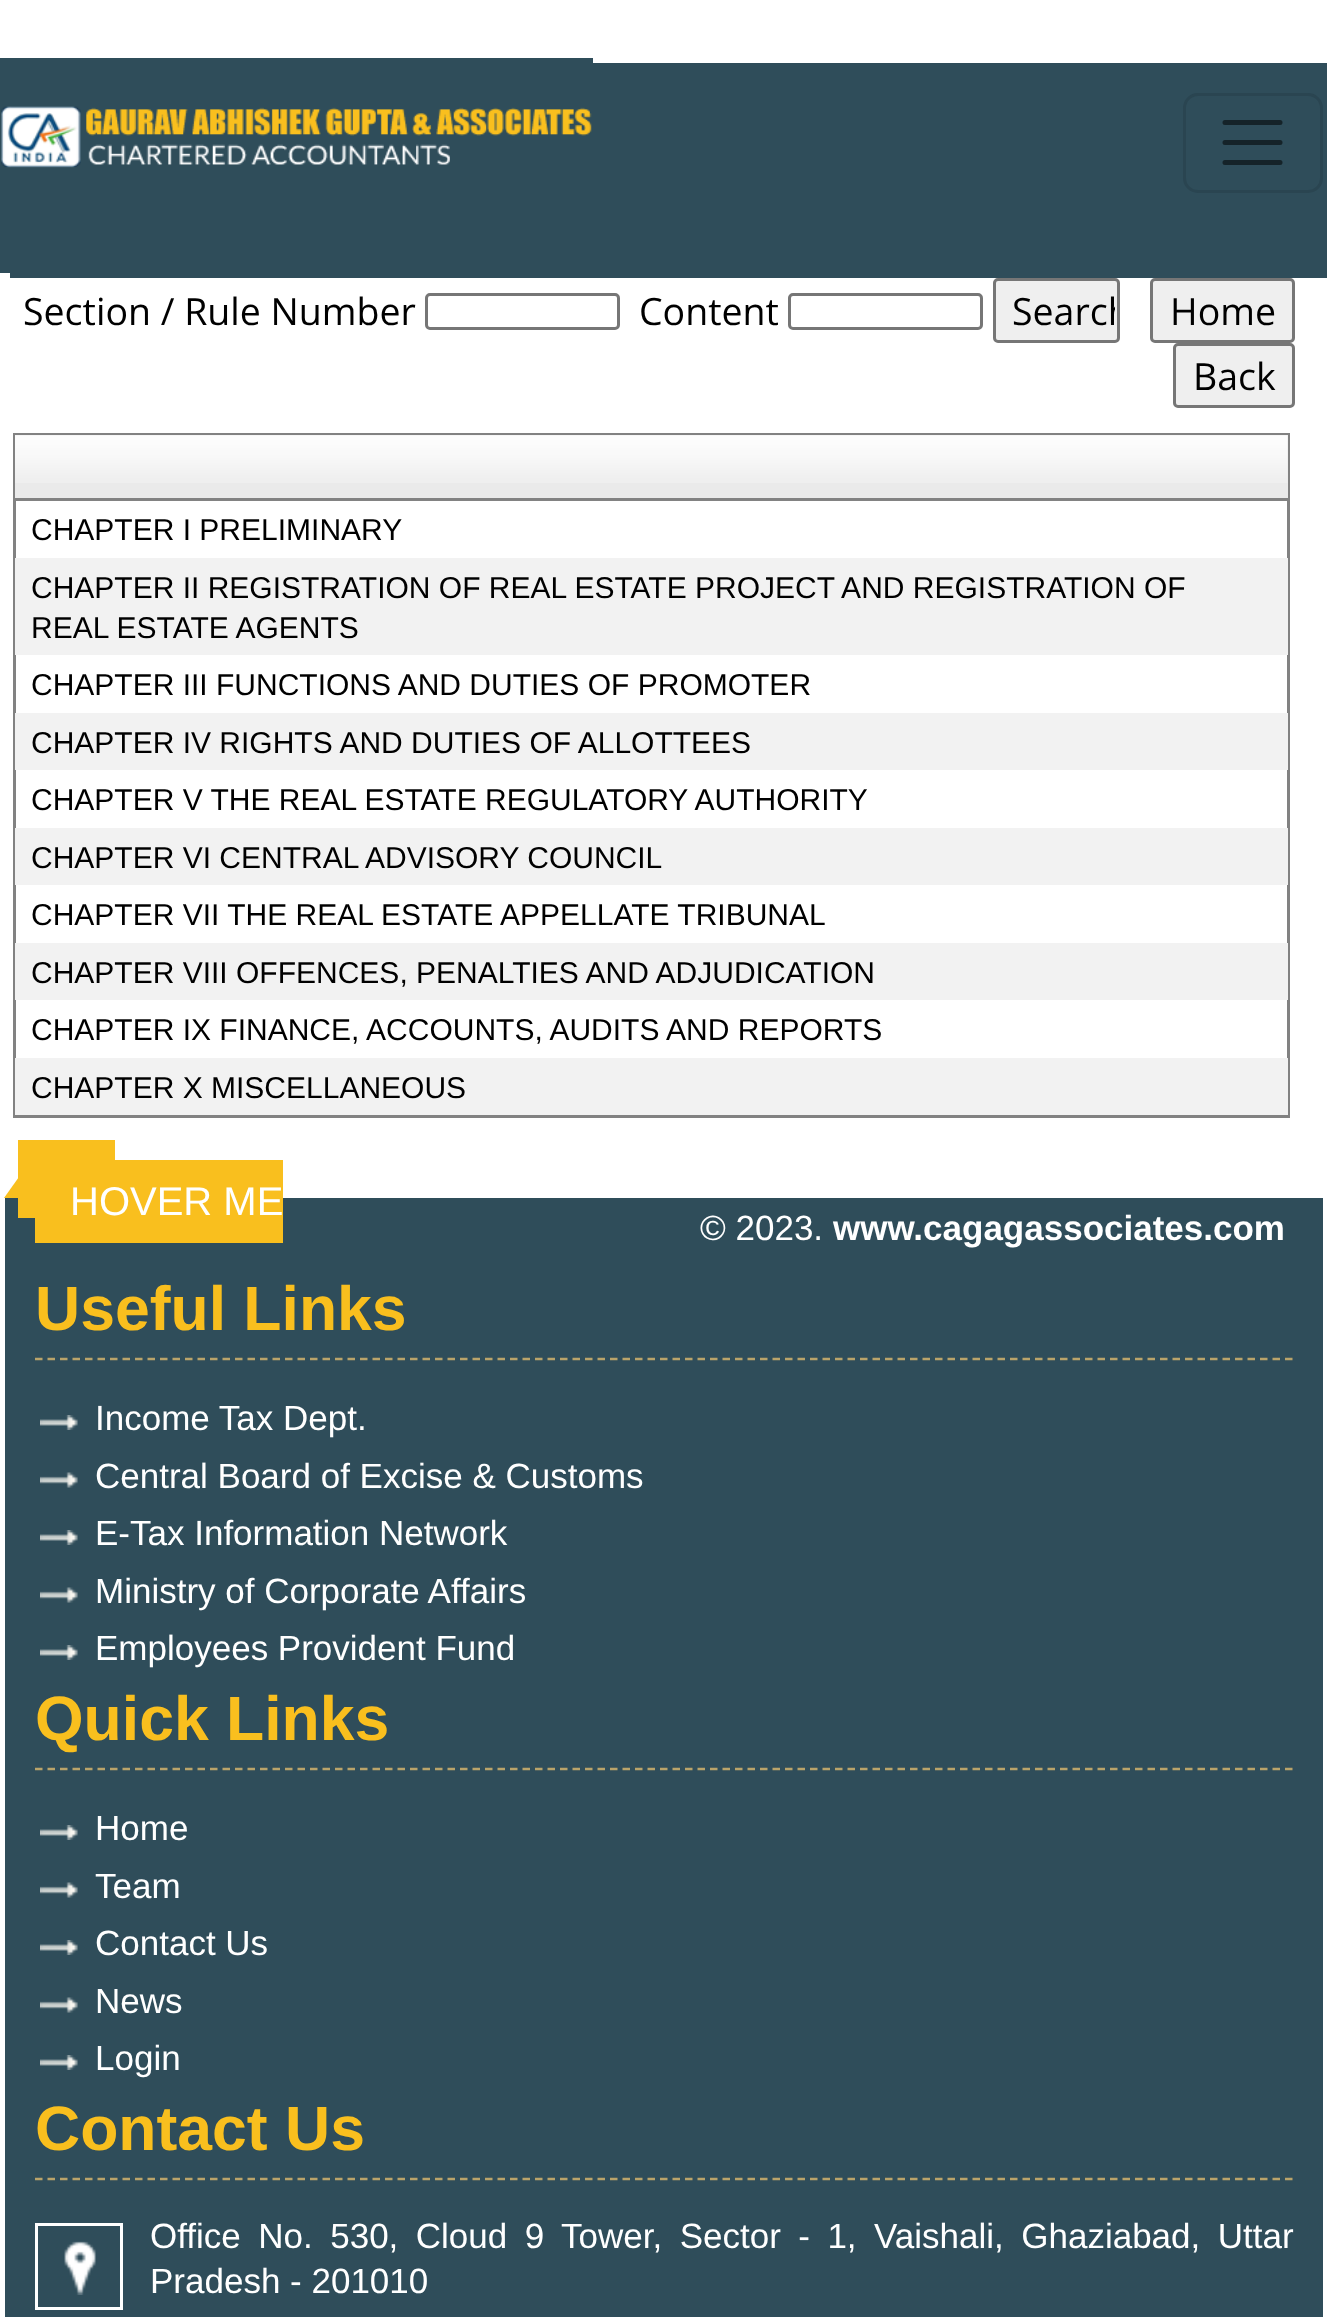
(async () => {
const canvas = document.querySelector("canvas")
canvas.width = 1327
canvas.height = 2317
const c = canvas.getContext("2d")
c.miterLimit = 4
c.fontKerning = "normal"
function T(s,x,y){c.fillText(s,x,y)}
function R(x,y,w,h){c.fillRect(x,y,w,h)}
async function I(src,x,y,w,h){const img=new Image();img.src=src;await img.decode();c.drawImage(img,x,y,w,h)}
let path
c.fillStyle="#fff"
R(0,0,1327,2317)
c.fillStyle="#2f4d5a"
R(10,63,1317,215)
R(0,58,593,215)
await I("1.png",1,106,591,62)
c.beginPath()
c.roundRect(1184.5,94.5,137,97,13.5)
c.strokeStyle="#2a4551"
c.lineWidth=3
c.stroke()
path = new Path2D("M1225 122.5h55m-55 20h55m-55 20h55")
c.strokeStyle="#152329"
c.lineWidth=5
c.lineCap="round"
c.stroke(path)
c.font="37.5px Open Sans"
c.fillStyle="#000"
T("Section / Rule Number",23,325)
c.beginPath()
c.roundRect(426.5,294.5,192,34,3.5)
c.strokeStyle="#767676"
c.lineWidth=3
c.stroke()
T("Content",639,325)
c.beginPath()
c.roundRect(789.5,294.5,192,34,3.5)
c.stroke()
c.fillStyle="#efefef"
c.beginPath()
c.roundRect(994.5,279.5,124,62,3.5)
c.fill()
c.stroke()
c.save()
c.beginPath()
c.rect(998,283,117,55)
c.clip()
c.fillStyle="#000"
T("Search",1012,325)
c.restore()
c.beginPath()
c.roundRect(1151.5,279.5,142,62,3.5)
c.fill()
c.stroke()
c.fillStyle="#000"
T("Home",1170,325)
c.fillStyle="#efefef"
c.beginPath()
c.roundRect(1174.5,344.5,119,62,3.5)
c.fill()
c.stroke()
c.fillStyle="#000"
T("Back",1193,390)
c.strokeStyle="#828282"
c.strokeRect(14.5,434.5,1274,682)
c.fillStyle="#eaeaea"
R(15,435,1273,63)
await I("2.png",15,435,1273,48)
c.fillStyle="#828282"
R(15,498,1273,3)
c.font="30px Liberation Sans"
c.fillStyle="#000"
T("CHAPTER I PRELIMINARY",31,540)
c.fillStyle="#f2f2f2"
R(15,558,1273,97)
c.fillStyle="#000"
T("CHAPTER II REGISTRATION OF REAL ESTATE PROJECT AND REGISTRATION OF",31,598)
T("REAL ESTATE AGENTS",31,638)
T("CHAPTER III FUNCTIONS AND DUTIES OF PROMOTER",31,695)
c.fillStyle="#f2f2f2"
R(15,713,1273,57)
c.fillStyle="#000"
T("CHAPTER IV RIGHTS AND DUTIES OF ALLOTTEES",31,753)
T("CHAPTER V THE REAL ESTATE REGULATORY AUTHORITY",31,810)
c.fillStyle="#f2f2f2"
R(15,828,1273,57)
c.fillStyle="#000"
T("CHAPTER VI CENTRAL ADVISORY COUNCIL",31,868)
T("CHAPTER VII THE REAL ESTATE APPELLATE TRIBUNAL",31,925)
c.fillStyle="#f2f2f2"
R(15,943,1273,57)
c.fillStyle="#000"
T("CHAPTER VIII OFFENCES, PENALTIES AND ADJUDICATION",31,983)
T("CHAPTER IX FINANCE, ACCOUNTS, AUDITS AND REPORTS",31,1040)
c.fillStyle="#f2f2f2"
R(15,1058,1273,57)
c.fillStyle="#000"
T("CHAPTER X MISCELLANEOUS",31,1098)
c.fillStyle="#2f4d5a"
R(5,1198,1318,1119)
c.fillStyle="#f9bf1e"
R(35,1160,248,83)
R(18,1140,97,78)
path = new Path2D("M31 1160h63l-28 38h-62z")
c.fill(path)
c.font="40px Liberation Sans"
c.fillStyle="#fff"
T("HOVER ME",70,1215)
c.font="35px Liberation Sans"
T("© 2023.",700,1240)
c.font="bold 35px Liberation Sans"
T("www.cagagassociates.com",833,1240)
path = new Path2D("M35 1359h1257.5")
c.strokeStyle="#baa46a"
c.lineWidth=2.5
c.lineCap="butt"
c.setLineDash([7.5,5])
c.stroke(path)
c.font="bold 62.5px Liberation Sans"
c.fillStyle="#f9bf1e"
T("Useful Links",35,1330)
await I("3.png",40,1415,38,15)
c.font="35px Liberation Sans"
c.fillStyle="#fff"
T("Income Tax Dept.",95,1430)
await I("4.png",40,1472,38,16)
T("Central Board of Excise & Customs",95,1488)
await I("3.png",40,1530,38,15)
T("E-Tax Information Network",95,1545)
await I("4.png",40,1587,38,16)
T("Ministry of Corporate Affairs",95,1603)
await I("3.png",40,1645,38,15)
T("Employees Provident Fund",95,1660)
path = new Path2D("M35 1769h1257.5")
c.stroke(path)
c.font="bold 62.5px Liberation Sans"
c.fillStyle="#f9bf1e"
T("Quick Links",35,1740)
await I("3.png",40,1825,38,15)
c.font="35px Liberation Sans"
c.fillStyle="#fff"
T("Home",95,1840)
await I("4.png",40,1882,38,16)
T("Team",95,1898)
await I("3.png",40,1940,38,15)
T("Contact Us",95,1955)
await I("4.png",40,1997,38,16)
T("News",95,2013)
await I("3.png",40,2055,38,15)
T("Login",95,2070)
path = new Path2D("M35 2179h1257.5")
c.stroke(path)
c.font="bold 62.5px Liberation Sans"
c.fillStyle="#f9bf1e"
T("Contact Us",35,2150)
c.strokeStyle="#fff"
c.lineWidth=3
c.setLineDash([])
c.strokeRect(36.5,2224.5,85,84)
await I("5.png",64,2241,32,54)
c.wordSpacing="7.75px"
c.font="35px Liberation Sans"
c.fillStyle="#fff"
T("Office No. 530, Cloud 9 Tower, Sector - 1, Vaishali, Ghaziabad, Uttar",150,2248)
c.wordSpacing="0px"
T("Pradesh - 201010",150,2293)
})()
